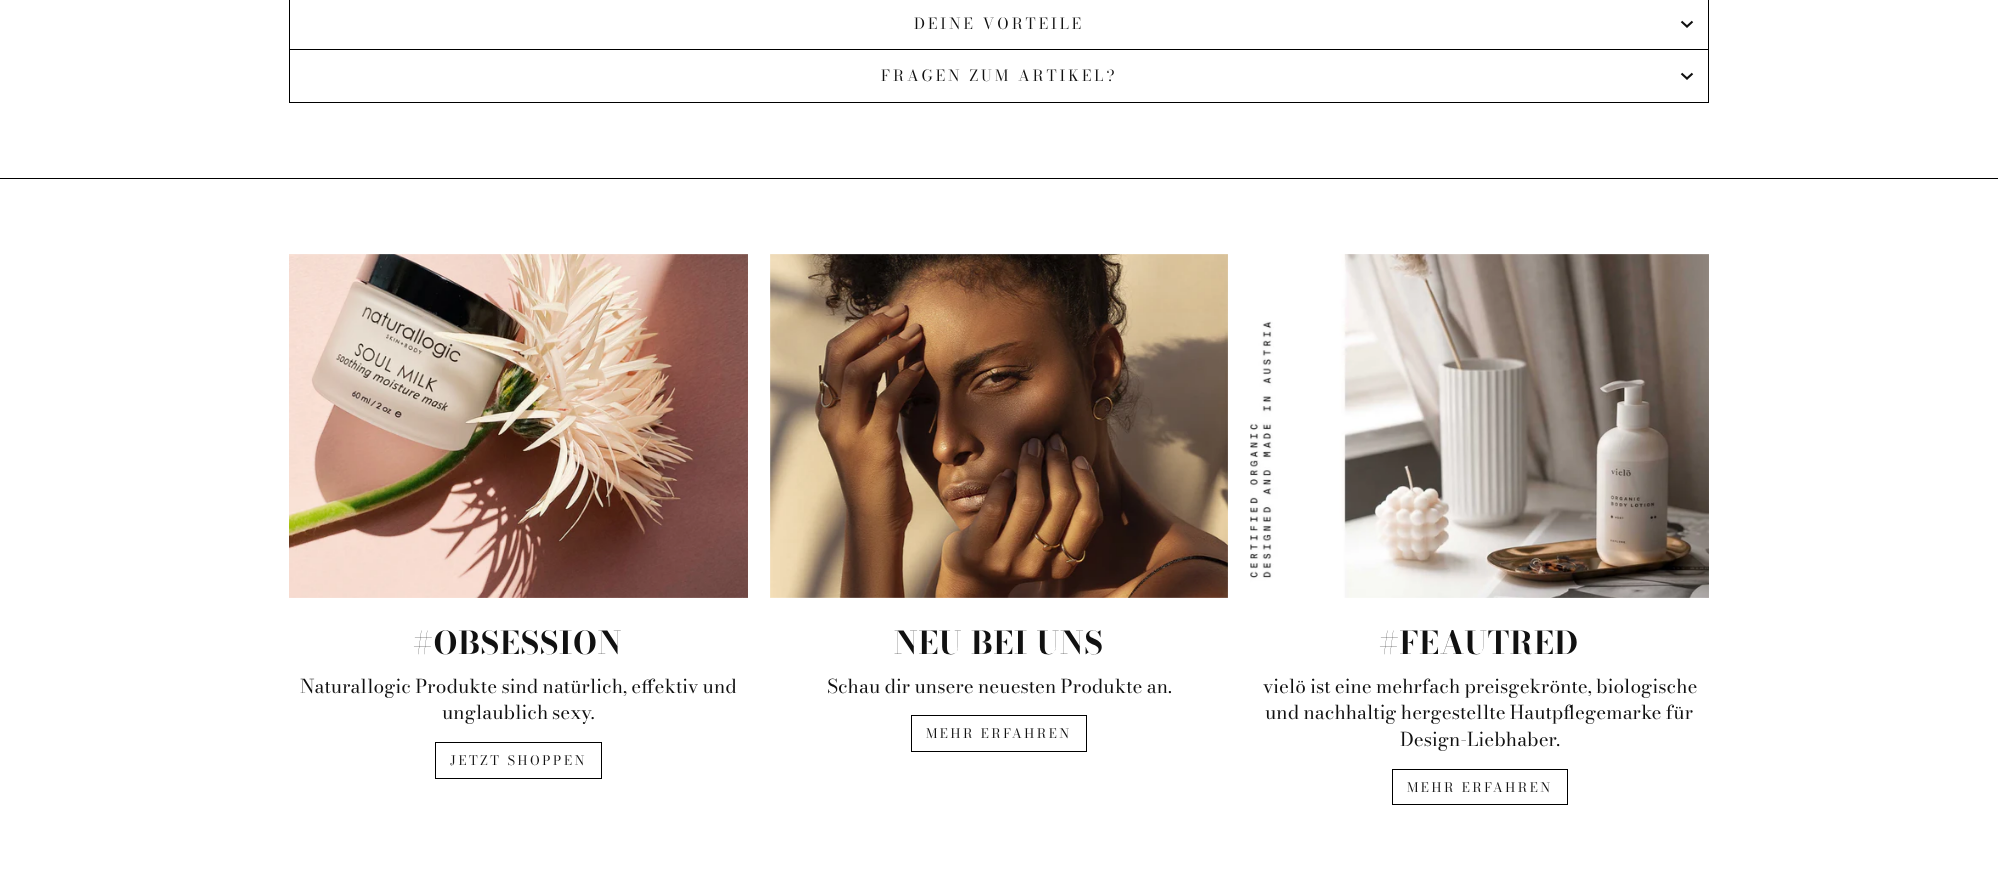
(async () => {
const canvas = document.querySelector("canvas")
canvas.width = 1998
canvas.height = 869
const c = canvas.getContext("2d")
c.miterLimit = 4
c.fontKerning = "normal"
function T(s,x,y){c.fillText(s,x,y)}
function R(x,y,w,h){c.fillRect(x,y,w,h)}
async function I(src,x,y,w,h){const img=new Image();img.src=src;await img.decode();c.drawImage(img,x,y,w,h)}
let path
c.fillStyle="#fff"
R(0,0,1998,869)
c.fillStyle="#000"
R(289,102,1420,1)
R(1708,0,1,49)
R(289,0,1,49)
c.letterSpacing="3px"
c.font="15.25px 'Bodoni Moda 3'"
c.fillStyle="#111"
T("DEINE VORTEILE",914,29)
path = new Path2D("M1681.5 21.5l5.5 5l5.5-5")
c.strokeStyle="#111"
c.lineWidth=2.1
c.stroke(path)
c.fillStyle="#000"
R(289,49,1420,1)
R(1708,49,1,53)
R(289,49,1,53)
c.fillStyle="#111"
T("FRAGEN ZUM ARTIKEL?",881,81)
path = new Path2D("M1681.5 73.5l5.5 5l5.5-5")
c.stroke(path)
c.fillStyle="#000"
R(0,178,1998,1)
await I("1.png",289,254,459,344)
c.letterSpacing="0.75px"
c.font="bold 31.25px Bodoni Moda"
c.fillStyle="#111"
T("#OBSESSION",413,654)
c.letterSpacing="0px"
c.wordSpacing="-0.5px"
c.font="19px Bodoni Moda"
T("Naturallogic Produkte sind natürlich, effektiv und",300,693)
c.wordSpacing="-1px"
T("unglaublich sexy.",442,719)
c.strokeStyle="#000"
c.lineWidth=1
c.strokeRect(435.5,742.5,166,36)
c.letterSpacing="2.6px"
c.wordSpacing="0px"
c.font="13px 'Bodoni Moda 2'"
T("JETZT SHOPPEN",450,765)
await I("2.png",770,254,458,344)
c.letterSpacing="0.75px"
c.font="bold 31.25px Bodoni Moda"
T("NEU BEI UNS",894,654)
c.letterSpacing="0px"
c.wordSpacing="-0.5px"
c.font="19px Bodoni Moda"
T("Schau dir unsere neuesten Produkte an.",827,693)
c.strokeRect(911.5,715.5,175,36)
c.letterSpacing="2.6px"
c.wordSpacing="0px"
c.font="13px 'Bodoni Moda 2'"
T("MEHR ERFAHREN",926,738)
await I("3.png",1250,254,459,344)
c.letterSpacing="0.75px"
c.font="bold 31.25px Bodoni Moda"
T("#FEAUTRED",1379,654)
c.letterSpacing="0px"
c.wordSpacing="-0.5px"
c.font="19px Bodoni Moda"
T("vielö ist eine mehrfach preisgekrönte, biologische",1263,693)
T("und nachhaltig hergestellte Hautpflegemarke für",1265,719)
c.wordSpacing="0px"
T("Design-Liebhaber.",1400,746)
c.strokeRect(1392.5,769.5,175,35)
c.letterSpacing="2.6px"
c.font="13px 'Bodoni Moda 2'"
T("MEHR ERFAHREN",1407,792)
})()
